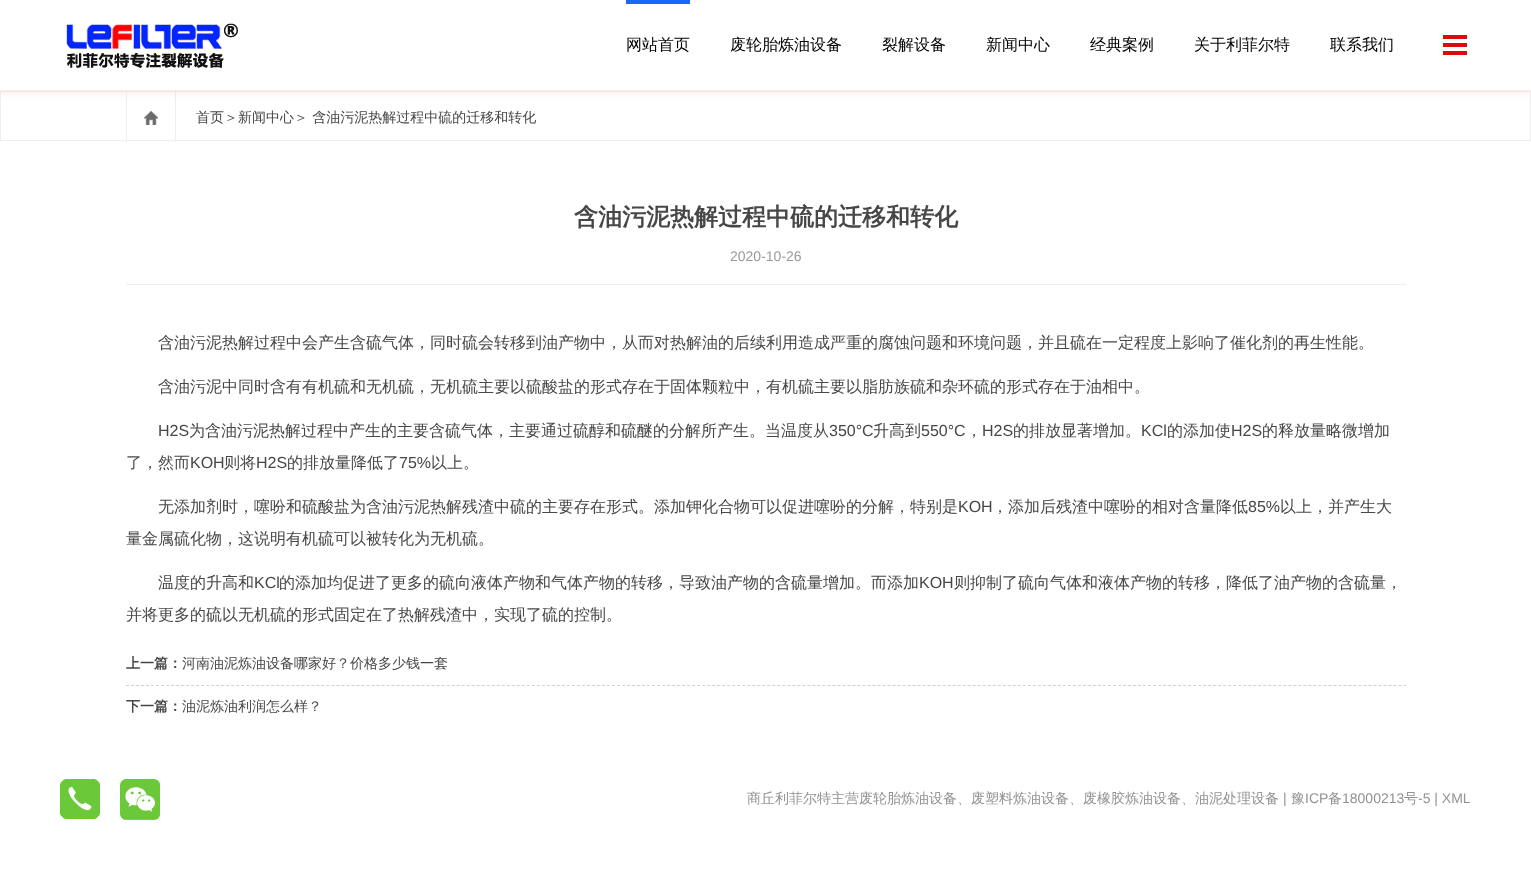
(async () => {
const canvas = document.querySelector("canvas")
canvas.width = 1531
canvas.height = 886
const c = canvas.getContext("2d")
c.miterLimit = 4
c.fontKerning = "normal"
function T(s,x,y){c.fillText(s,x,y)}
function R(x,y,w,h){c.fillRect(x,y,w,h)}
async function I(src,x,y,w,h){const img=new Image();img.src=src;await img.decode();c.drawImage(img,x,y,w,h)}
let path
c.fillStyle="#fff"
R(0,0,1531,886)
c.strokeStyle="#eee"
c.strokeRect(.5,91.5,1530,49)
c.fillStyle="#eee"
R(175,92,1,50)
R(126,92,1,50)
c.save()
c.beginPath()
c.rect(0,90,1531,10)
c.clip()
c.fillStyle="#ffd4d2"
c.filter="blur(5px)"
c.beginPath()
c.rect(0,0,1531,90)
c.fill()
c.filter="none"
c.restore()
await I("1.png",66,23,172,45)
c.fillStyle="#1768fd"
R(626,0,64,4)
c.font="500 16px WenQuanYi Zen Hei"
c.fillStyle="#000"
T("网站首页",626,50)
T("废轮胎炼油设备",730,50)
T("裂解设备",882,50)
T("新闻中心",986,50)
T("经典案例",1090,50)
T("关于利菲尔特",1194,50)
T("联系我们",1330,50)
await I("2.png",1443,35,24,20)
await I("3.png",144,111,14,14)
c.font="500 14px WenQuanYi Zen Hei"
c.fillStyle="#474747"
T("首页＞新闻中心",196,122)
T("＞ 含油污泥热解过程中硫的迁移和转化",294,122)
c.font="bold 24px WenQuanYi Zen Hei"
T("含油污泥热解过程中硫的迁移和转化",574,225)
c.font="14px Liberation Sans"
c.fillStyle="#999"
T("2020-10-26",730,261)
c.fillStyle="#eee"
R(126,284,1280,1)
c.font="500 16px WenQuanYi Zen Hei"
c.fillStyle="#474747"
T("含油污泥热解过程中会产生含硫气体，同时硫会转移到油产物中，从而对热解油的后续利用造成严重的腐蚀问题和环境问题，并且硫在一定程度上影响了催化剂的再生性能。",158,348)
T("含油污泥中同时含有有机硫和无机硫，无机硫主要以硫酸盐的形式存在于固体颗粒中，有机硫主要以脂肪族硫和杂环硫的形式存在于油相中。",158,392)
c.font="16px Liberation Sans"
T("H2S",158,436)
c.font="500 16px WenQuanYi Zen Hei"
T("为含油污泥热解过程中产生的主要含硫气体，主要通过硫醇和硫醚的分解所产生。当温度从",189,436)
c.font="16px Liberation Sans"
T("350°C",829,436)
c.font="500 16px WenQuanYi Zen Hei"
T("升高到",873,436)
c.font="16px Liberation Sans"
T("550°C",921,436)
c.font="500 16px WenQuanYi Zen Hei"
T("，",966,436)
c.font="16px Liberation Sans"
T("H2S",982,436)
c.font="500 16px WenQuanYi Zen Hei"
T("的排放显著增加。",1013,436)
c.font="16px Liberation Sans"
T("KCl",1141,436)
c.font="500 16px WenQuanYi Zen Hei"
T("的添加使",1167,436)
c.font="16px Liberation Sans"
T("H2S",1231,436)
c.font="500 16px WenQuanYi Zen Hei"
T("的释放量略微增加",1262,436)
T("了，然而",126,468)
c.font="16px Liberation Sans"
T("KOH",190,468)
c.font="500 16px WenQuanYi Zen Hei"
T("则将",224,468)
c.font="16px Liberation Sans"
T("H2S",256,468)
c.font="500 16px WenQuanYi Zen Hei"
T("的排放量降低了",287,468)
c.font="16px Liberation Sans"
T("75%",399,468)
c.font="500 16px WenQuanYi Zen Hei"
T("以上。",431,468)
T("无添加剂时，噻吩和硫酸盐为含油污泥热解残渣中硫的主要存在形式。添加钾化合物可以促进噻吩的分解，特别是",158,512)
c.font="16px Liberation Sans"
T("KOH",958,512)
c.font="500 16px WenQuanYi Zen Hei"
T("，添加后残渣中噻吩的相对含量降低",992,512)
c.font="16px Liberation Sans"
T("85%",1248,512)
c.font="500 16px WenQuanYi Zen Hei"
T("以上，并产生大",1280,512)
T("量金属硫化物，这说明有机硫可以被转化为无机硫。",126,544)
T("温度的升高和",158,588)
c.font="16px Liberation Sans"
T("KCl",254,588)
c.font="500 16px WenQuanYi Zen Hei"
T("的添加均促进了更多的硫向液体产物和气体产物的转移，导致油产物的含硫量增加。而添加",279,588)
c.font="16px Liberation Sans"
T("KOH",919,588)
c.font="500 16px WenQuanYi Zen Hei"
T("则抑制了硫向气体和液体产物的转移，降低了油产物的含硫量，",954,588)
T("并将更多的硫以无机硫的形式固定在了热解残渣中，实现了硫的控制。",126,620)
path = new Path2D("M126 685.5h1280")
c.strokeStyle="#d0d0d0"
c.setLineDash([3,2.01])
c.stroke(path)
c.font="bold 14px WenQuanYi Zen Hei"
T("上一篇：",126,668)
c.font="500 14px WenQuanYi Zen Hei"
T("河南油泥炼油设备哪家好？价格多少钱一套",182,668)
c.font="bold 14px WenQuanYi Zen Hei"
T("下一篇：",126,711)
c.font="500 14px WenQuanYi Zen Hei"
T("油泥炼油利润怎么样？",182,711)
await I("4.png",60,779,40,40)
await I("5.png",120,779,40,41)
c.fillStyle="#929292"
T("商丘利菲尔特主营废轮胎炼油设备、废塑料炼油设备、废橡胶炼油设备、油泥处理设备",747,803)
c.font="14px Liberation Sans"
T("|",1283,803)
c.font="500 14px WenQuanYi Zen Hei"
T("豫",1291,803)
c.font="14px Liberation Sans"
T("ICP",1305,803)
c.font="500 14px WenQuanYi Zen Hei"
T("备",1328,803)
c.font="14px Liberation Sans"
T("18000213",1342,803)
c.font="500 14px WenQuanYi Zen Hei"
T("号",1404,803)
c.font="14px Liberation Sans"
T("-5 | XML",1418,803)
})()
